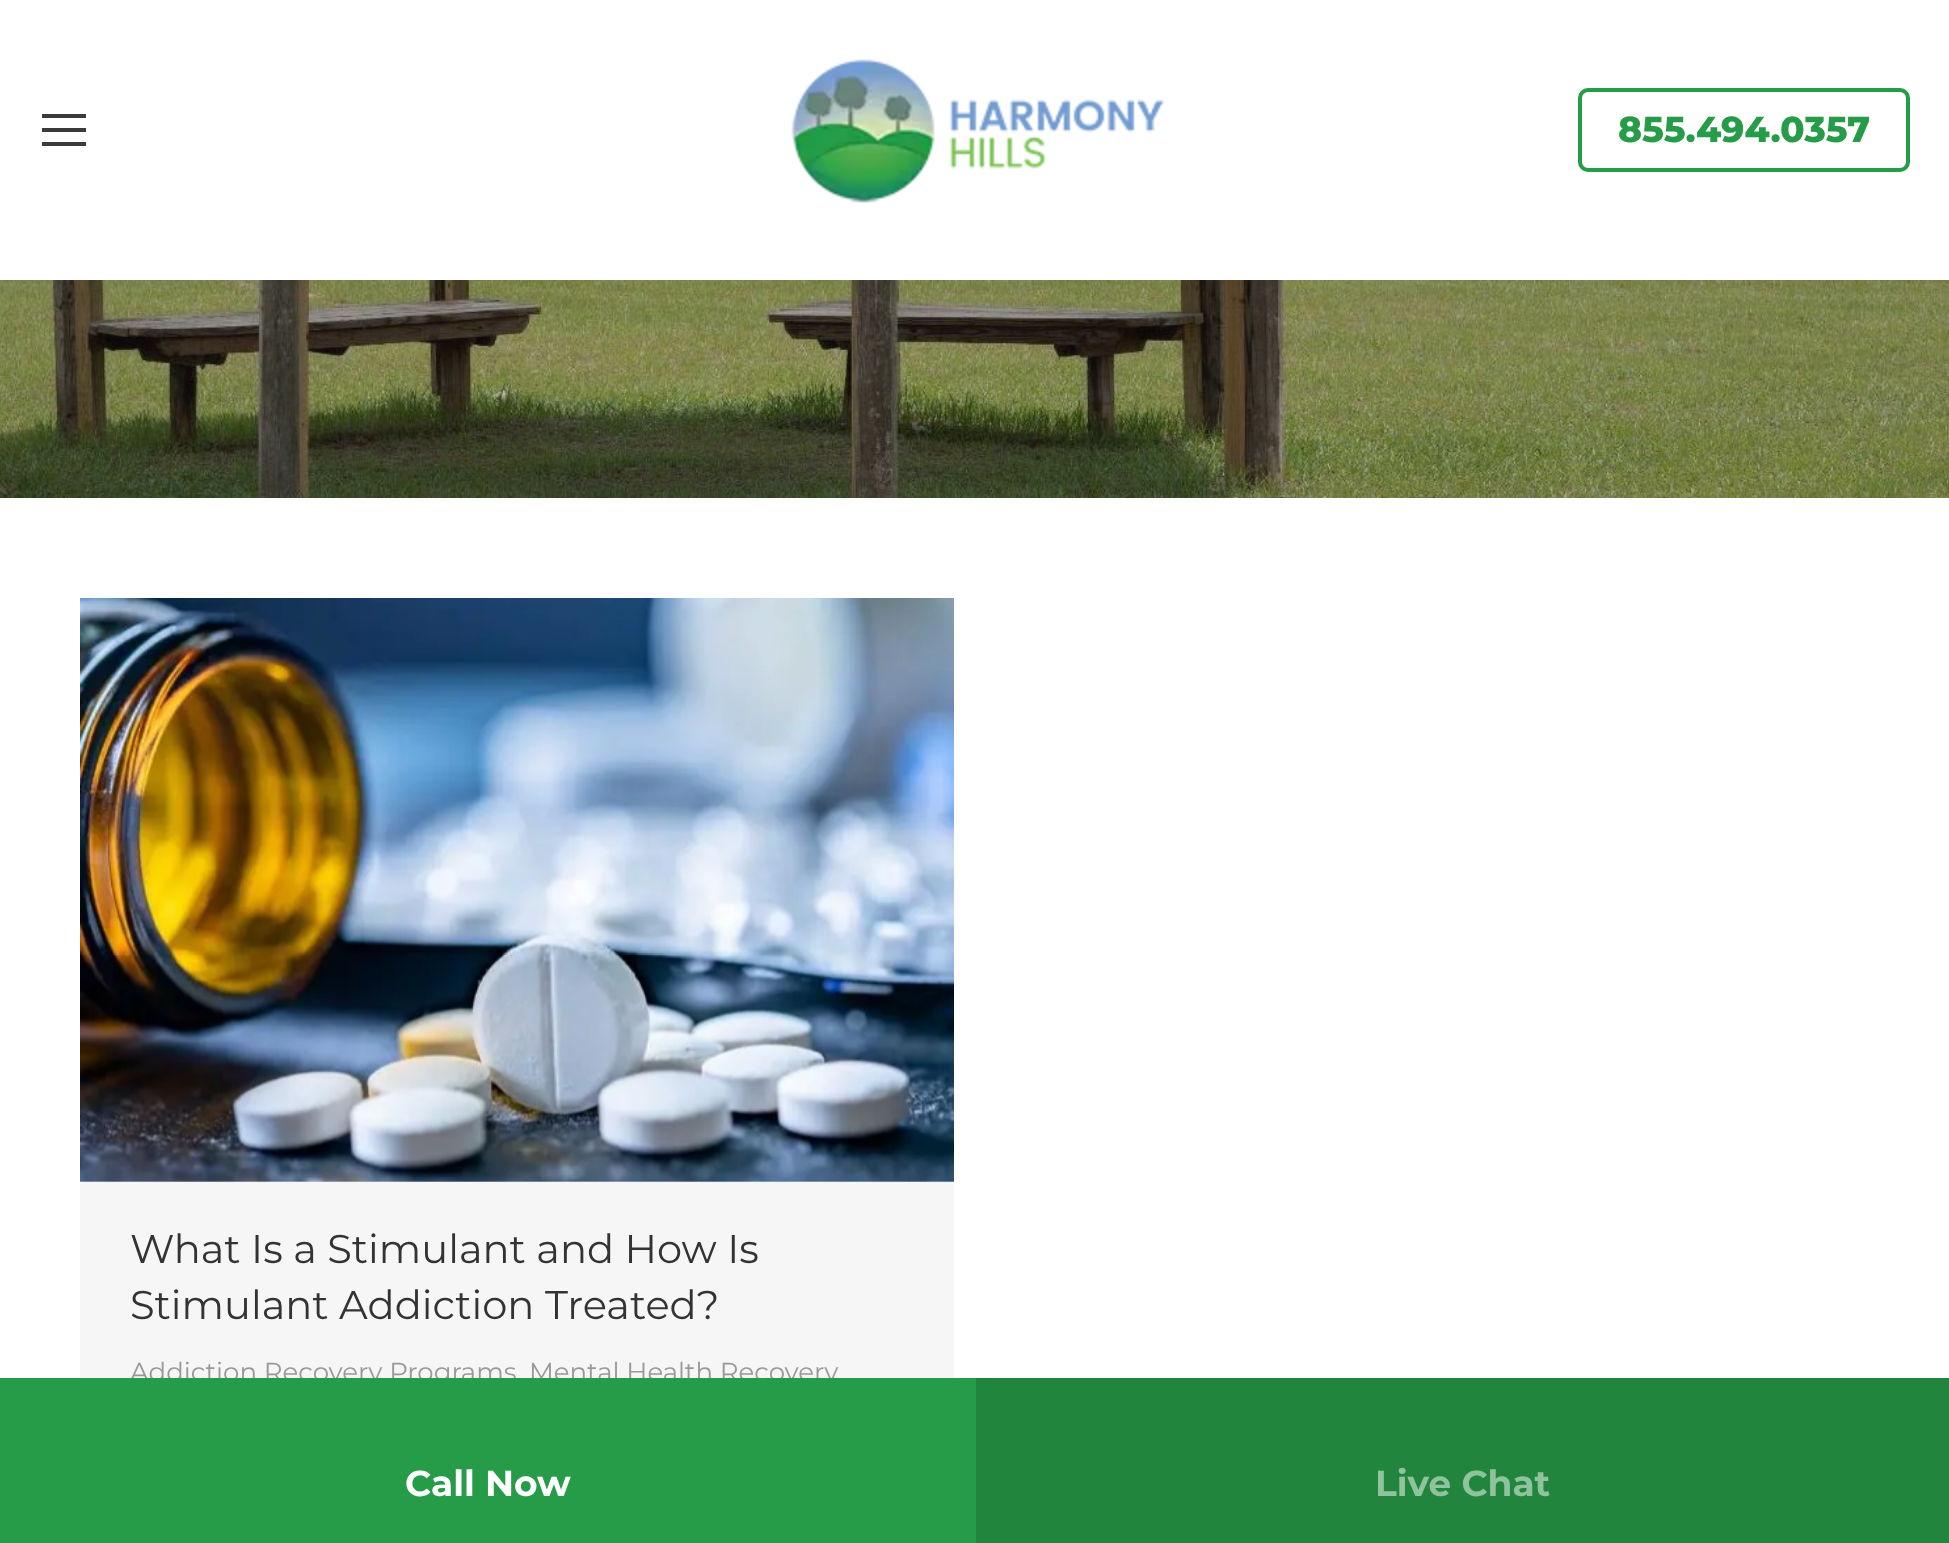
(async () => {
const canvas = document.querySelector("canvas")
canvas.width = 1949
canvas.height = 1543
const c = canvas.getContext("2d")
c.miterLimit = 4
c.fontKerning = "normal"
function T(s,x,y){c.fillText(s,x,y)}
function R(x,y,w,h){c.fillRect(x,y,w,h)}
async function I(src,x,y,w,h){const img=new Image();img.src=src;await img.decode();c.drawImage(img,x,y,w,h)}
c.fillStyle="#fff"
R(0,0,1949,1543)
await I("2.png",0,280,1949,218)
c.fillStyle="#00000012"
c.filter="blur(15px)"
c.beginPath()
c.rect(-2,-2,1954,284)
c.fill()
c.filter="none"
c.fillStyle="#fff"
R(0,0,1949,280)
c.fillStyle="#3a3a3a"
R(42,114,44,4)
R(42,128,44,4)
R(42,142,44,4)
await I("1.png",791,59,374,144)
c.beginPath()
c.roundRect(1580,90,328,80,8)
c.strokeStyle="#279c48"
c.lineWidth=4
c.stroke()
c.font="800 36px Montserrat"
c.fillStyle="#279c48"
T("855.494.0357",1618,142)
c.fillStyle="#f6f6f6"
R(80,1181,874,197)
await I("3.png",80,598,874,584)
c.font="40px Montserrat"
c.fillStyle="#333"
T("What Is a Stimulant and How Is",130,1263)
T("Stimulant Addiction Treated?",130,1319)
c.font="26px Montserrat"
c.fillStyle="#999"
T("Addiction Recovery Programs",130,1381)
T("Mental Health Recovery",529,1381)
c.fillStyle="#279c48"
R(0,1378,976,165)
c.font="bold 36px Montserrat"
c.fillStyle="#fff"
T("Call Now",405,1496)
c.fillStyle="#21853d"
R(976,1378,973,165)
c.fillStyle="#90c29e"
T("Live Chat",1375,1496)
})()
